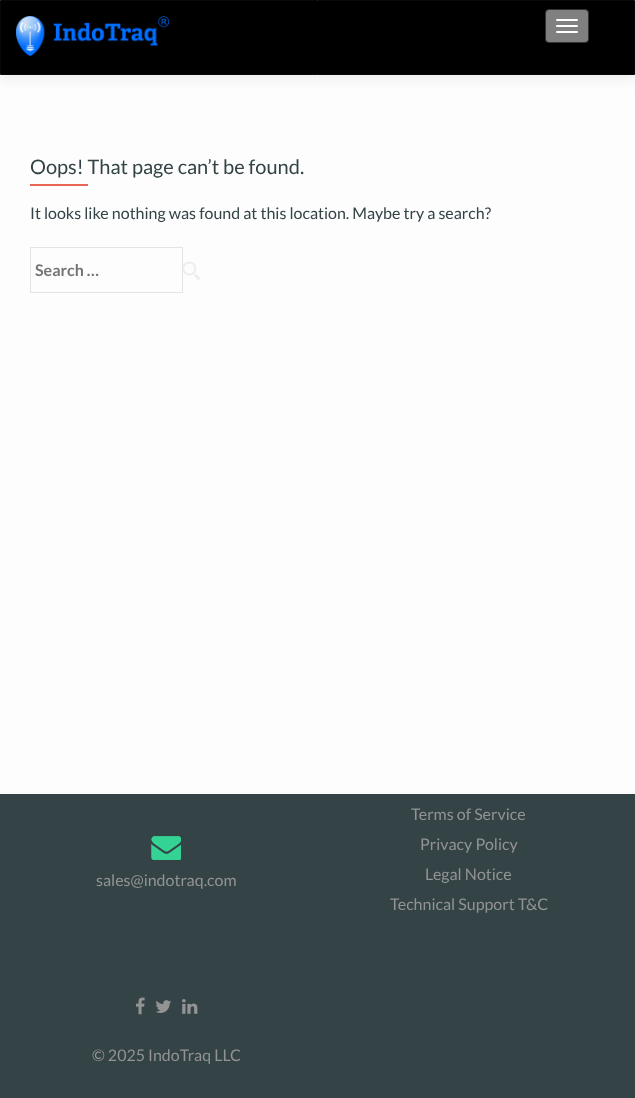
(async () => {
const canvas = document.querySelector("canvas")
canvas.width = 635
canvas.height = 1098
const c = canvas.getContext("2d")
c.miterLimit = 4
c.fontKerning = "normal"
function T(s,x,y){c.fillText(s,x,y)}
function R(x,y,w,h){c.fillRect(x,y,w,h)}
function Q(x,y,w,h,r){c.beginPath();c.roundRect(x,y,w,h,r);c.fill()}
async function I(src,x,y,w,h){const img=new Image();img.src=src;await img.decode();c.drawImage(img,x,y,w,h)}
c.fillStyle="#fdfdfd"
R(0,0,635,1098)
c.fillStyle="#32323214"
c.filter="blur(5.5px)"
c.beginPath()
c.rect(0,5,635,75)
c.fill()
c.filter="none"
c.fillStyle="#000"
c.beginPath()
c.rect(.5,.5,634,74)
c.fill()
c.strokeStyle="#080808"
c.stroke()
await I("1.png",16,16,153,40)
c.fillStyle="#808080"
c.beginPath()
c.roundRect(545.5,9.5,43,33,3.5)
c.fill()
c.strokeStyle="#333"
c.stroke()
c.fillStyle="#fff"
Q(556,19,22,2,1)
Q(556,25,22,2,1)
Q(556,31,22,2,1)
c.font="20px Lato"
c.fillStyle="#334346"
T("Oops! That page can’t be found.",30,174)
c.fillStyle="#e96656"
R(30,184,58,2)
c.font="16px Lato"
c.fillStyle="#334346"
T("It looks like nothing was found at this location. Maybe try a search?",30,219)
c.strokeStyle="#e4e4e4"
c.strokeRect(30.5,247.5,152,45)
c.font="bold 16px Lato"
c.fillStyle="#757575"
T("Search …",35,276)
await I("2.png",183,261,17,19)
c.fillStyle="#334346"
R(0,794,635,304)
await I("3.png",151,836,30,24)
c.font="16px Lato"
c.fillStyle="#939393"
T("sales@indotraq.com",96,886)
T("Terms of Service",411,820)
T("Privacy Policy",420,850)
T("Legal Notice",425,880)
T("Technical Support T&C",390,910)
await I("4.png",135,997,10,18)
await I("5.png",155,1000,16,13)
await I("6.png",182,999,16,15)
T("© 2025 IndoTraq LLC",92,1061)
})()
